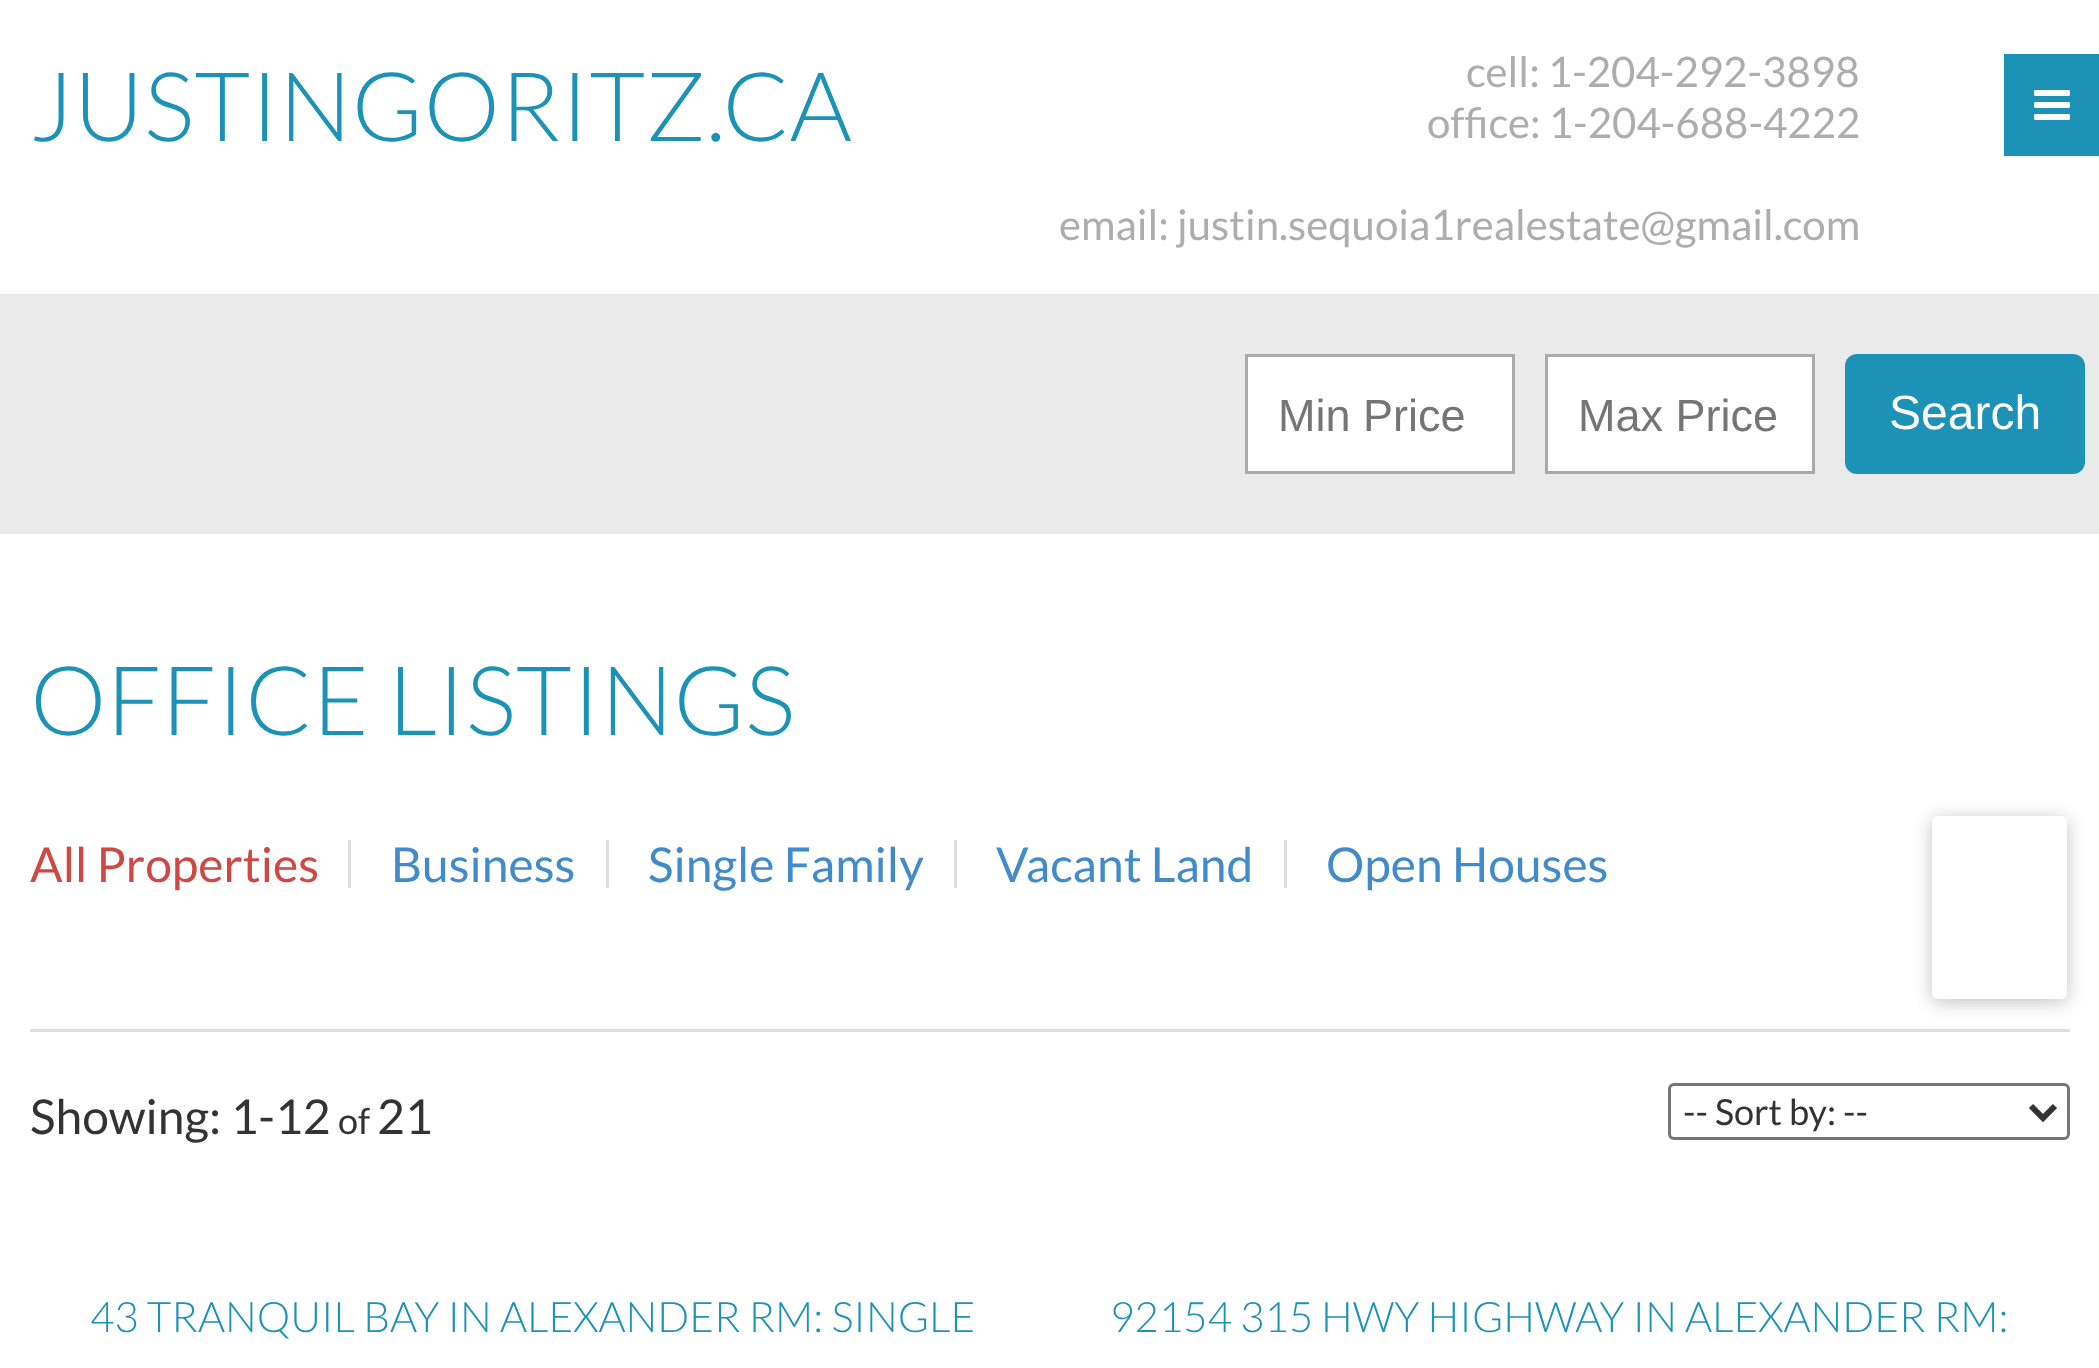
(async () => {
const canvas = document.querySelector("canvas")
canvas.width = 2099
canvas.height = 1368
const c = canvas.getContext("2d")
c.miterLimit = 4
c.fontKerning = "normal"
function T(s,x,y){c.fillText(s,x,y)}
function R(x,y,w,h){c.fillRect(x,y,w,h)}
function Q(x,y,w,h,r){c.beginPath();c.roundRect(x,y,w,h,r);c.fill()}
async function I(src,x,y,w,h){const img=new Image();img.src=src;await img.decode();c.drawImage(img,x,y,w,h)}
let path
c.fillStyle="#fff"
R(0,0,2099,1368)
c.font="300 96px Lato"
c.fillStyle="#1b92b6"
T("JUSTINGORITZ.CA",30,141)
c.font="42px Lato"
c.fillStyle="#adadad"
T("cell: 1-204-292-3898",1466,87)
T("office: 1-204-688-4222",1427,138)
T("email: justin.sequoia1realestate@gmail.com",1059,240)
c.fillStyle="#1b92b6"
R(2004,54,95,102)
await I("1.png",2034,90,36,30)
c.fillStyle="#eaeaea"
R(0,294,2099,240)
c.fillStyle="#fff"
c.beginPath()
c.rect(1246.5,355.5,267,117)
c.fill()
c.strokeStyle="#aaa"
c.lineWidth=3
c.stroke()
c.font="45px Liberation Sans"
c.fillStyle="#757575"
T("Min Price",1278,431)
c.fillStyle="#fff"
c.beginPath()
c.rect(1546.5,355.5,267,117)
c.fill()
c.stroke()
c.fillStyle="#757575"
T("Max Price",1578,431)
c.fillStyle="#1b92b6"
Q(1845,354,240,120,12)
c.font="48px Liberation Sans"
c.fillStyle="#fff"
T("Search",1889,429)
c.font="300 96px Lato"
c.fillStyle="#1b92b6"
T("OFFICE LISTINGS",30,735)
c.fillStyle="#ddd"
R(348,840,3,48)
c.font="48px Lato"
c.fillStyle="#ce4844"
T("All Properties",30,882)
c.fillStyle="#ddd"
R(606,840,3,48)
c.fillStyle="#428bca"
T("Business",391,882)
c.fillStyle="#ddd"
R(954,840,3,48)
c.fillStyle="#428bca"
T("Single Family",648,882)
c.fillStyle="#ddd"
R(1284,840,3,48)
c.fillStyle="#428bca"
T("Vacant Land",996,882)
T("Open Houses",1326,882)
c.fillStyle="#ddd"
R(30,1029,2040,3)
c.save()
path = new Path2D("M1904 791h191v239h-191zm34 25h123c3.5 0 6 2.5 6 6v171c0 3.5-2.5 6-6 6h-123c-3.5 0-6-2.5-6-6v-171c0-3.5 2.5-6 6-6z")
c.clip(path,"evenodd")
c.fillStyle="#0000001f"
c.filter="blur(9px)"
c.beginPath()
c.roundRect(1932,819,135,183,6)
c.fill()
c.filter="none"
c.filter="blur(9px)"
c.beginPath()
c.roundRect(1932,819,135,183,6)
c.fill()
c.filter="none"
c.restore()
c.fillStyle="#333"
T("Showing: 1-12",30,1134)
c.font="36px Lato"
T("of",338,1134)
c.font="48px Lato"
T("21",377,1134)
c.beginPath()
c.roundRect(1669.5,1084.5,399,54,4.5)
c.strokeStyle="#767676"
c.stroke()
path = new Path2D("M2031 1106l12 12l12-12")
c.strokeStyle="#333"
c.lineWidth=6
c.stroke(path)
c.font="36px Lato"
T("-- Sort by: --",1683,1125)
c.font="300 42px Lato"
c.fillStyle="#1b92b6"
T("43 TRANQUIL BAY IN ALEXANDER RM: SINGLE",90,1332)
T("92154 315 HWY HIGHWAY IN ALEXANDER RM:",1110,1332)
})()
